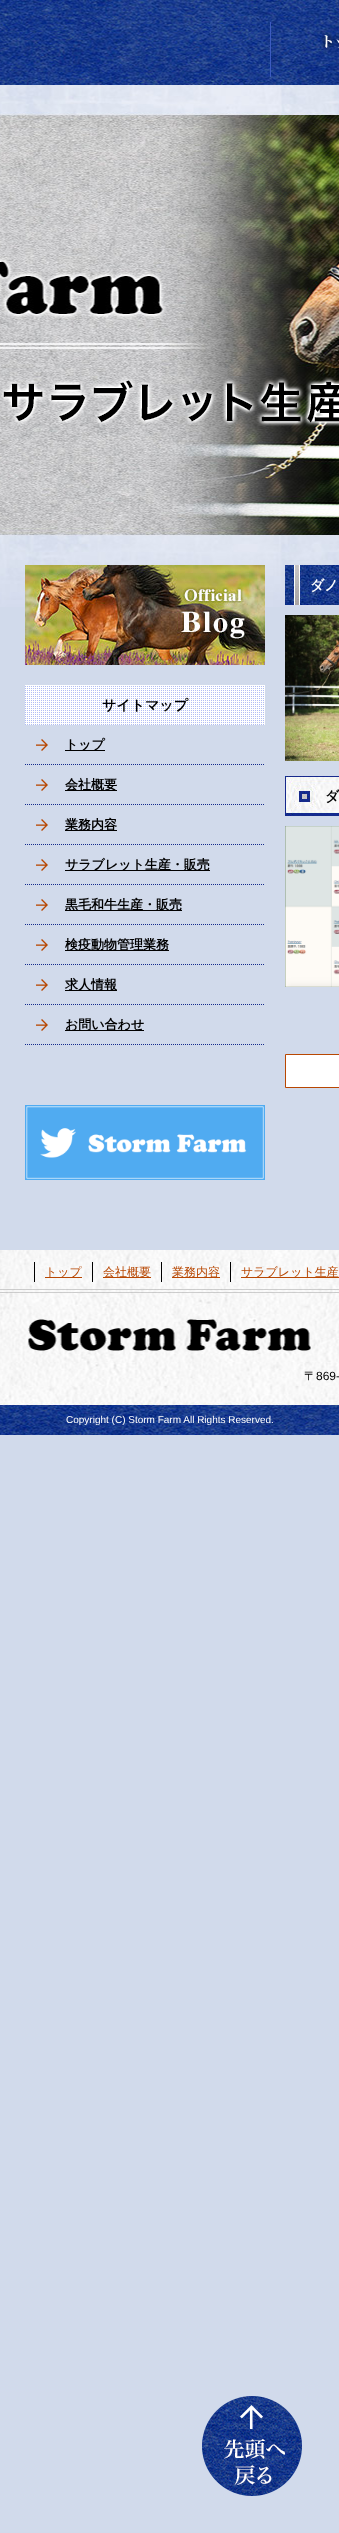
(async () => {
const canvas = document.querySelector("canvas")
canvas.width = 339
canvas.height = 2533
const c = canvas.getContext("2d")
c.miterLimit = 4
c.fontKerning = "normal"
function T(s,x,y){c.fillText(s,x,y)}
function R(x,y,w,h){c.fillRect(x,y,w,h)}
async function I(src,x,y,w,h){const img=new Image();img.src=src;await img.decode();c.drawImage(img,x,y,w,h)}
c.fillStyle="#d1daeb"
R(0,0,339,2533)
await I("1.png",0,1250,339,185)
await I("2.png",0,85,339,522)
await I("3.png",28,1319,283,32)
await I("4.png",0,0,339,85)
await I("5.png",270,22,69,55)
await I("6.png",202,2396,100,100)
await I("7.png",0,377,339,50)
await I("8.png",25,565,240,100)
await I("9.png",25,685,240,40)
c.font="bold 14px WenQuanYi Zen Hei"
c.fillStyle="#000"
T("サイトマップ",102,710)
await I("10.png",25,739,239,26)
R(65,750,40,1)
c.font="bold 13px WenQuanYi Zen Hei"
T("トップ",65,749)
await I("10.png",25,779,239,26)
R(65,790,52,1)
T("会社概要",65,789)
await I("10.png",25,819,239,26)
R(65,830,52,1)
T("業務内容",65,829)
await I("10.png",25,859,239,26)
R(65,870,145,1)
T("サラブレット生産・販売",65,869)
await I("10.png",25,899,239,26)
R(65,910,117,1)
T("黒毛和牛生産・販売",65,909)
await I("10.png",25,939,239,26)
R(65,950,104,1)
T("検疫動物管理業務",65,949)
await I("10.png",25,979,239,26)
R(65,990,52,1)
T("求人情報",65,989)
await I("10.png",25,1019,239,26)
R(65,1030,79,1)
T("お問い合わせ",65,1029)
await I("11.png",25,1105,240,75)
await I("12.png",285,565,54,40)
c.font="bold 14px WenQuanYi Zen Hei"
c.fillStyle="#fff"
T("ダノ",310,590)
await I("13.png",285,615,54,146)
await I("14.png",285,776,54,40)
c.fillStyle="#000"
T("ダ",325,801)
await I("15.png",285,826,54,161)
c.fillStyle="#fff"
c.beginPath()
c.rect(285.5,1054.5,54,33)
c.fill()
c.strokeStyle="#b84702"
c.stroke()
c.fillStyle="#000"
R(92,1262,1,20)
R(34,1262,1,20)
c.fillStyle="#b84702"
R(45,1277,37,1)
c.font="500 12px WenQuanYi Zen Hei"
T("トップ",45,1276)
c.fillStyle="#000"
R(161,1262,1,20)
c.fillStyle="#b84702"
R(103,1277,48,1)
T("会社概要",103,1276)
c.fillStyle="#000"
R(230,1262,1,20)
c.fillStyle="#b84702"
R(172,1277,48,1)
T("業務内容",172,1276)
R(241,1277,98,1)
T("サラブレット生産",241,1276)
c.fillStyle="#000"
T("〒",304,1380)
c.font="12px Liberation Sans"
T("869-",316,1380)
c.font="10px Liberation Sans"
c.fillStyle="#fff"
T("Copyright (C) Storm Farm All Rights Reserved.",66,1423)
})()
